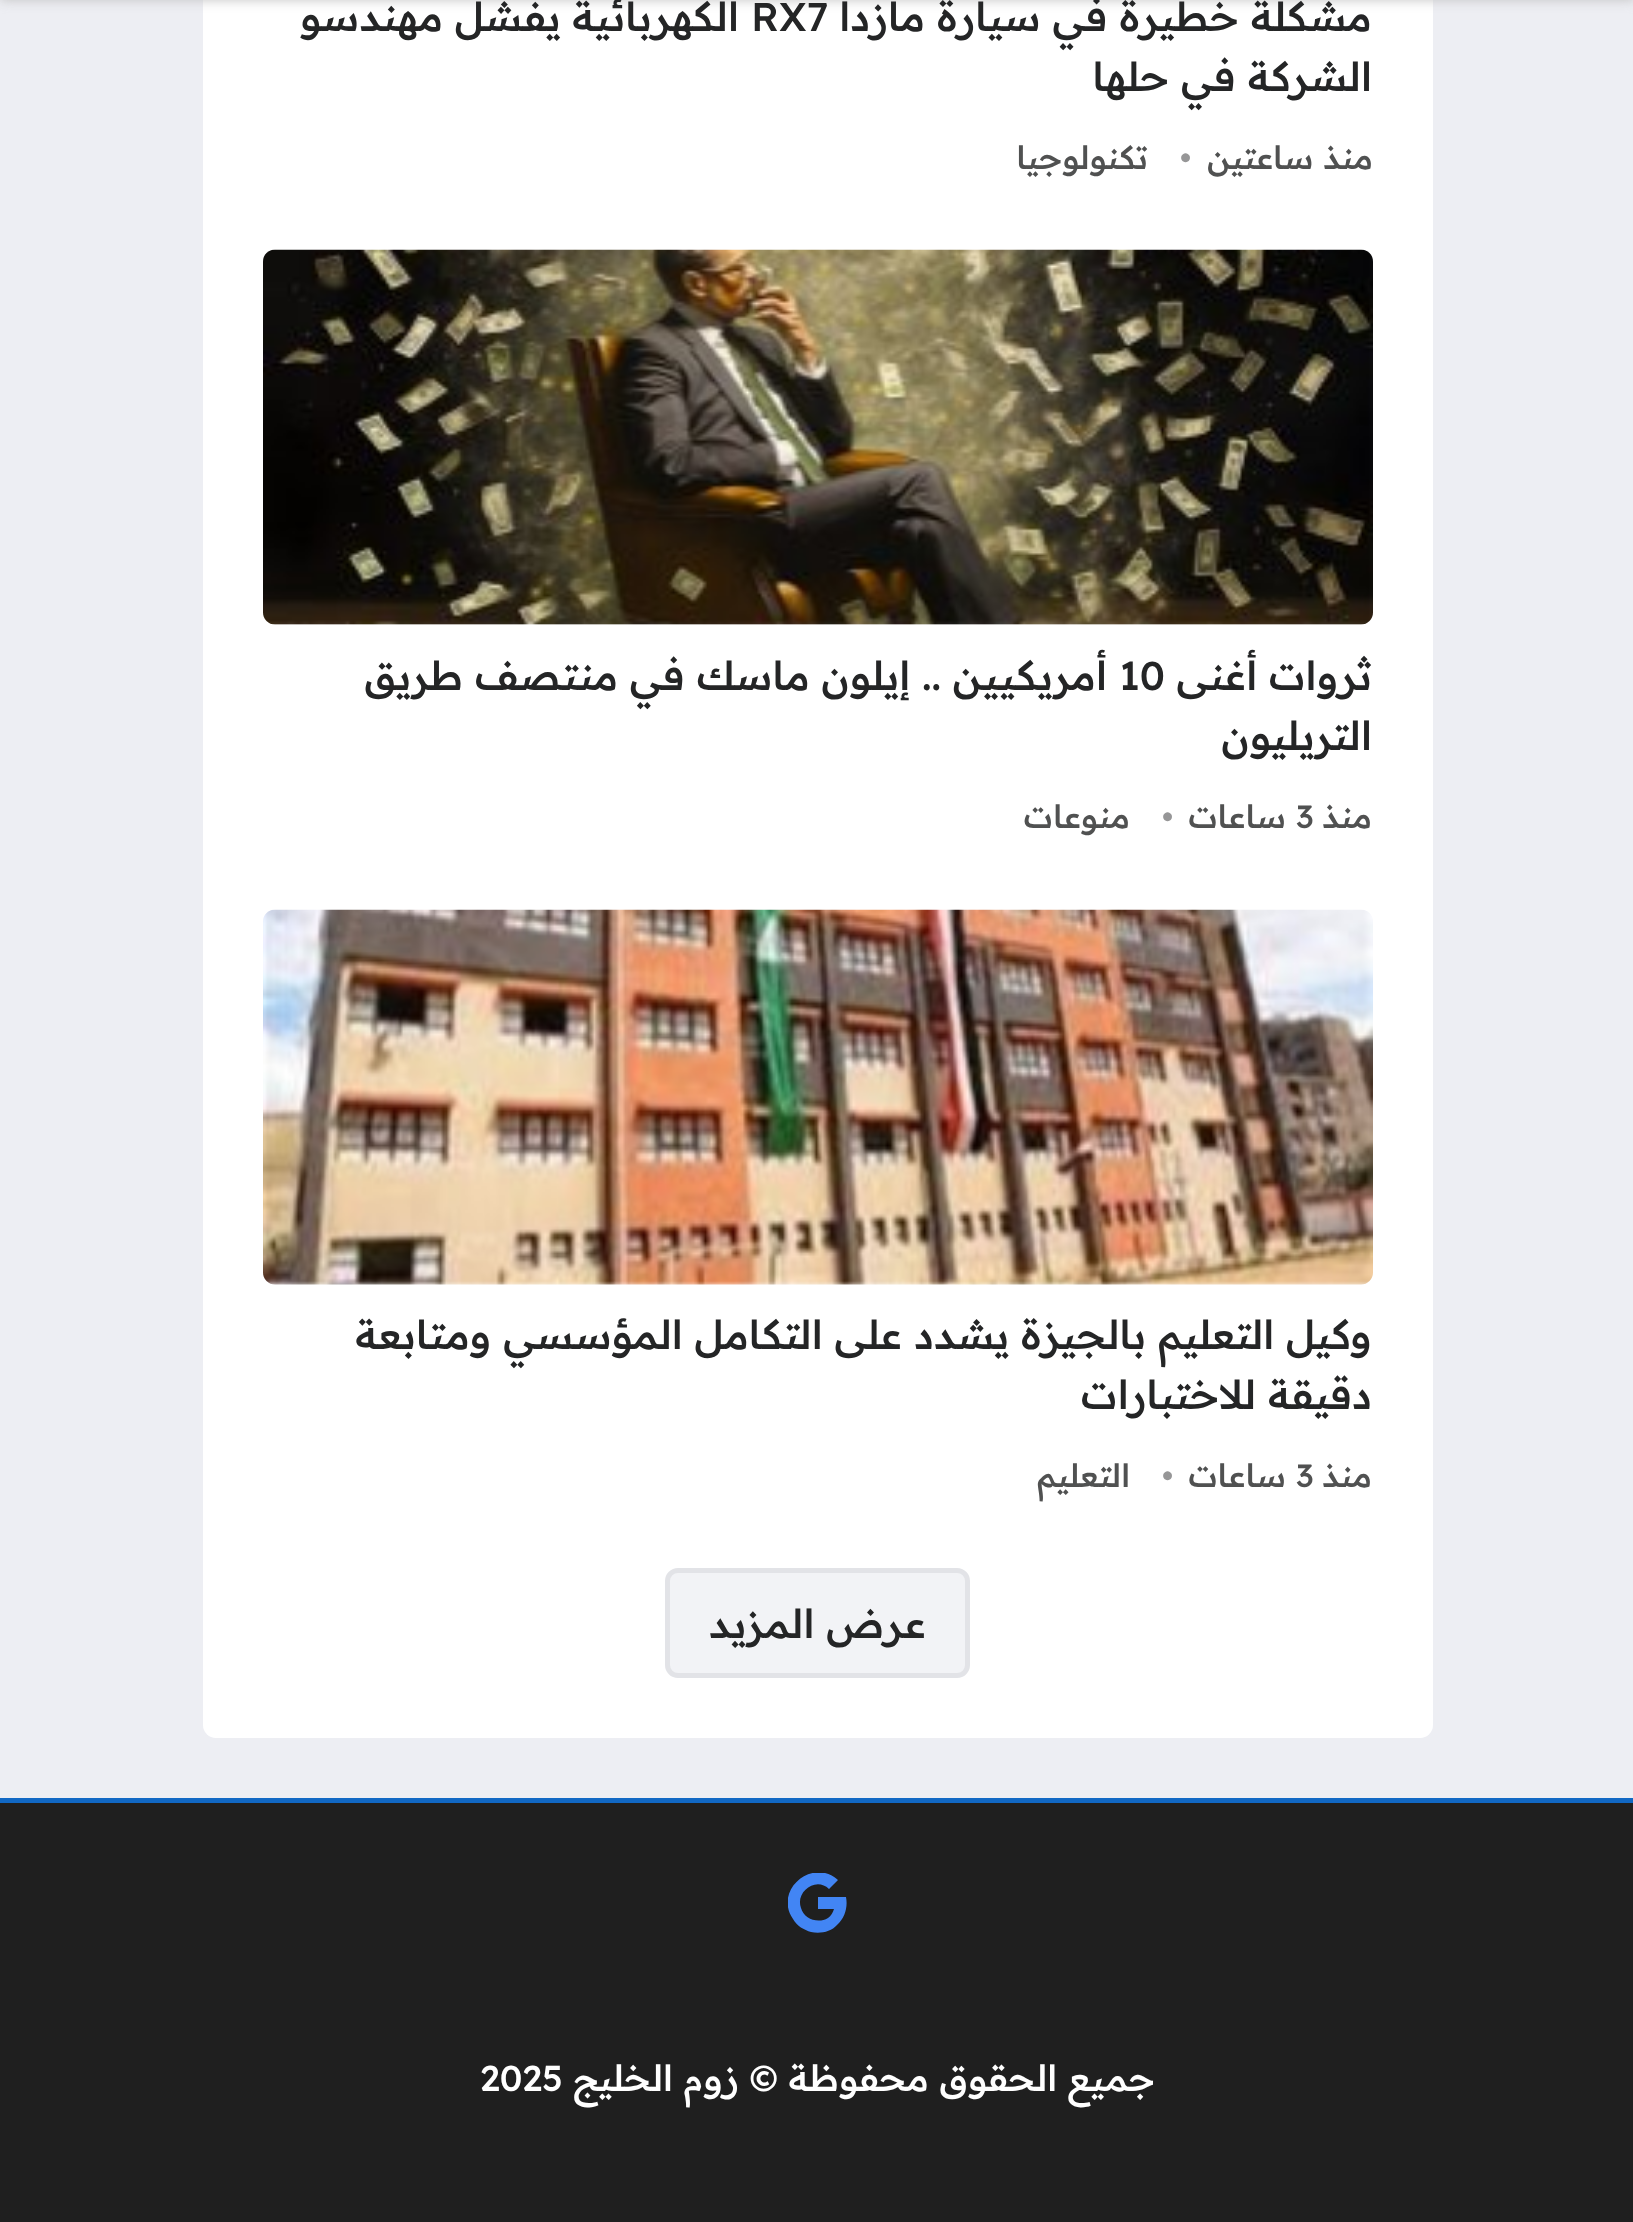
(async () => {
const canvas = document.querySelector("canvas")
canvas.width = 1633
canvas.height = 2222
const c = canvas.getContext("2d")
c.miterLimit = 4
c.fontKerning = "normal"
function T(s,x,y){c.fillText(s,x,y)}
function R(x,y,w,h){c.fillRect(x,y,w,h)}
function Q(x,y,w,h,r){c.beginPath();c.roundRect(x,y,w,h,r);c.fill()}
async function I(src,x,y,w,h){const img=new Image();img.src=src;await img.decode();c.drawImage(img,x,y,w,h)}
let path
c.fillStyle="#edeef3"
R(0,0,1633,2222)
c.fillStyle="#fff"
Q(203,-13,1230,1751,13)
c.fillStyle="#c3c3c3"
c.filter="blur(6px)"
c.beginPath()
c.rect(0,-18,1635,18)
c.fill()
c.filter="none"
c.direction="rtl"
c.font="500 40px Readex Pro"
c.fillStyle="#242526"
T("مشكلة خطيرة في سيارة مازدا",1372,31)
c.direction="ltr"
T("RX7",751,31)
c.direction="rtl"
T("الكهربائية يفشل مهندسو",739,31)
T("الشركة في حلها",1372,91)
c.font="500 32px Readex Pro"
c.fillStyle="#505151"
T("منذ ساعتين",1373,169)
c.direction="ltr"
c.fillStyle="#969697"
T("•",1180,169)
c.direction="rtl"
c.fillStyle="#505151"
T("تكنولوجيا",1148,169)
await I("1.png",263,249,1110,376)
c.font="500 40px Readex Pro"
c.fillStyle="#242526"
T("ثروات أغنى",1372,690)
c.direction="ltr"
T("10",1119,690)
c.direction="rtl"
T("أمريكيين .. إيلون ماسك في منتصف طريق",1107,690)
T("التريليون",1372,750)
c.font="500 32px Readex Pro"
c.fillStyle="#505151"
T("منذ",1372,828)
c.direction="ltr"
T("3",1296,828)
c.direction="rtl"
T("ساعات",1286,828)
c.direction="ltr"
c.fillStyle="#969697"
T("•",1162,828)
c.direction="rtl"
c.fillStyle="#505151"
T("منوعات",1130,828)
await I("2.png",263,909,1110,376)
c.font="500 40px Readex Pro"
c.fillStyle="#242526"
T("وكيل التعليم بالجيزة يشدد على التكامل المؤسسي ومتابعة",1372,1349)
T("دقيقة للاختبارات",1372,1409)
c.font="500 32px Readex Pro"
c.fillStyle="#505151"
T("منذ",1372,1487)
c.direction="ltr"
T("3",1296,1487)
c.direction="rtl"
T("ساعات",1286,1487)
c.direction="ltr"
c.fillStyle="#969697"
T("•",1162,1487)
c.direction="rtl"
c.fillStyle="#505151"
T("التعليم",1130,1487)
c.fillStyle="#f2f3f6"
c.beginPath()
c.roundRect(667.5,1570.5,300,105,10.5)
c.fill()
c.strokeStyle="#e2e3e7"
c.lineWidth=5
c.stroke()
c.font="500 40px Readex Pro"
c.fillStyle="#242526"
T("عرض المزيد",926,1638)
c.fillStyle="#1f1f1f"
R(0,1803,1633,419)
c.fillStyle="#1168c4"
R(0,1798,1633,5)
c.save()
c.beginPath()
c.rect(788,1873,60,60)
c.clip()
c.fillStyle="#4285f4"
path = new Path2D("M846 1897c2 10-1 21-9 28c-6 7-17 9-26 7c-7-2-14-6-18-13c-20-29 20-62 45-39l-9 9c-13-13-34 3-28 19c3 11 17 16 27 10c3-2 5-6 6-9h-16v-12z")
c.fill(path)
c.restore()
c.font="500 36px Readex Pro"
c.fillStyle="#fff"
T("جميع الحقوق محفوظة © زوم الخليج",1155,2091)
c.direction="ltr"
T("2025",480,2091)
})()
